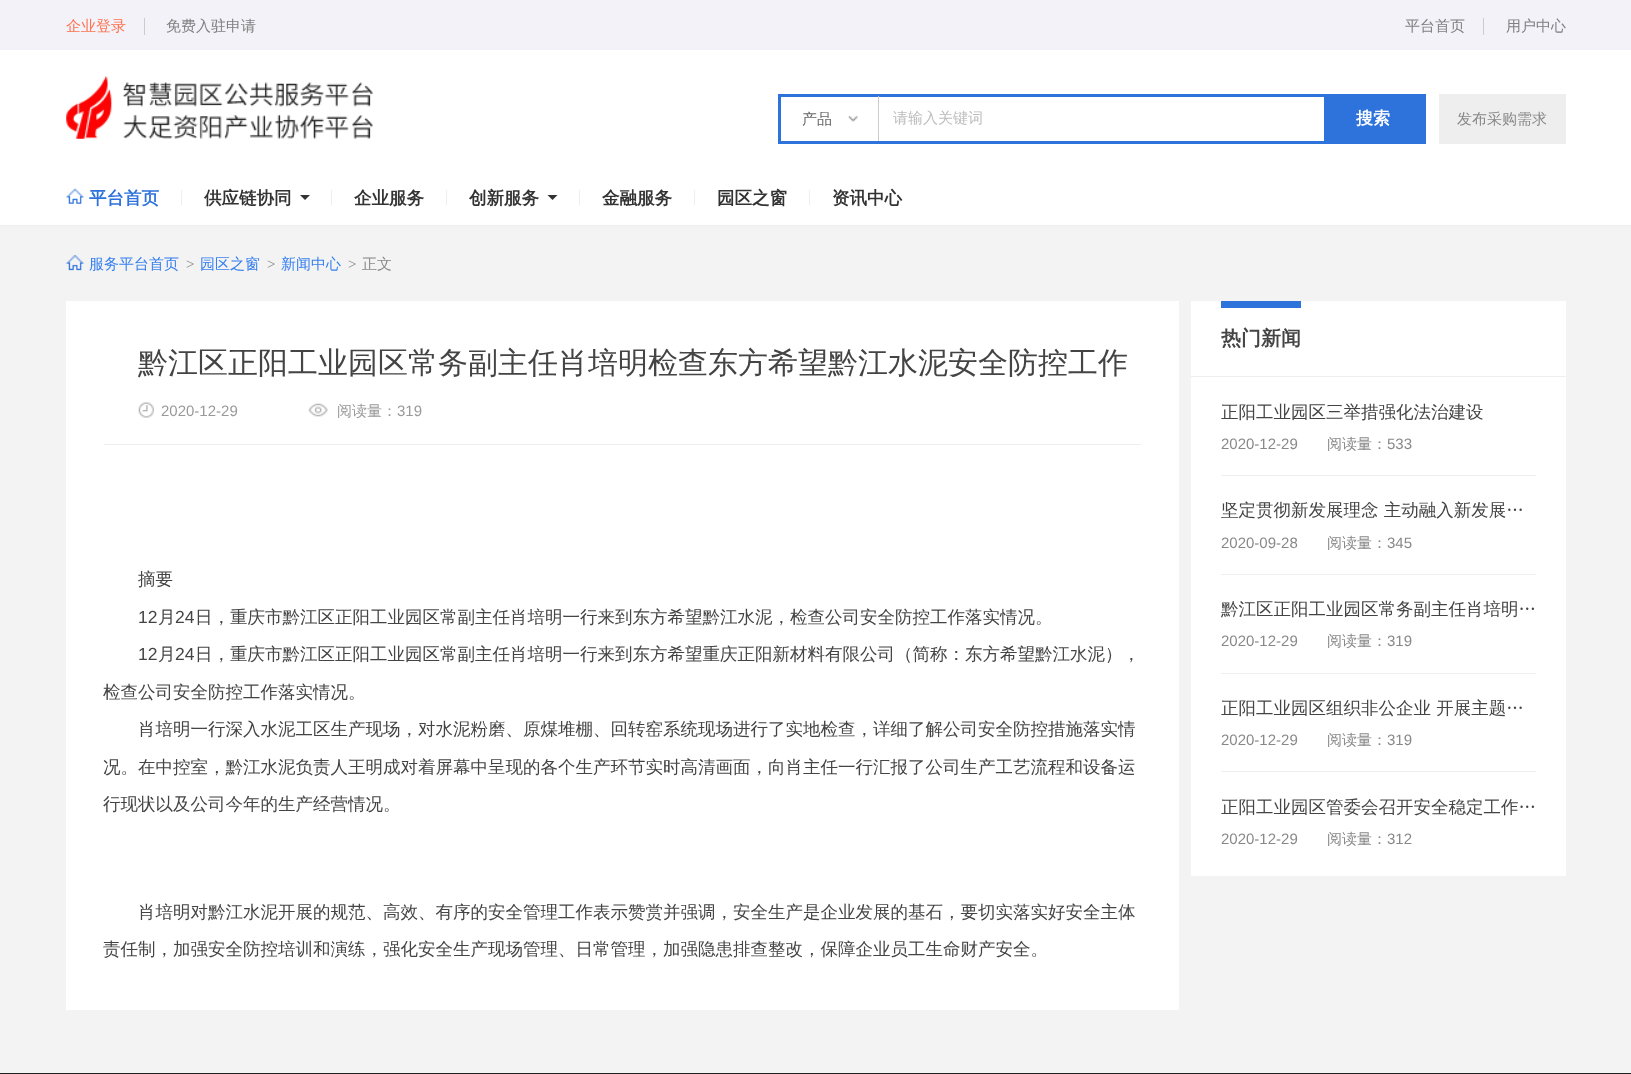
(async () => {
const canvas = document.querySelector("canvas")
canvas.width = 1631
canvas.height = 1074
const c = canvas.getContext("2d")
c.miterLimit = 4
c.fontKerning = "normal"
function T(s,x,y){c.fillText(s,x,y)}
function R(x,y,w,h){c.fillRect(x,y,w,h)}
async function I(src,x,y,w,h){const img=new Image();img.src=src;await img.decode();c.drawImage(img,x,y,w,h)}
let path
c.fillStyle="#f3f3f3"
R(0,0,1631,1074)
c.fillStyle="#f2f2f8"
R(0,0,1631,50)
c.fillStyle="#ccc"
R(144,18,1,17)
c.font="500 15px WenQuanYi Zen Hei"
c.fillStyle="#fe724f"
T("企业登录",66,31)
c.fillStyle="#808080"
T("免费入驻申请",166,31)
c.fillStyle="#ccc"
R(1483,18,1,17)
c.fillStyle="#808080"
T("平台首页",1405,31)
T("用户中心",1506,31)
c.fillStyle="#fff"
R(0,50,1631,175)
await I("1.png",66,76,307,63)
c.strokeStyle="#2e72db"
c.lineWidth=3
c.strokeRect(779.5,95.5,645,47)
c.fillStyle="#ccc"
R(878,96,1,45)
c.fillStyle="#666"
T("产品",802,124)
await I("2.png",848,116,10,6)
c.fillStyle="#bdbcbc"
T("请输入关键词",893,123)
c.fillStyle="#2e72db"
R(1324,97,99,44)
c.font="bold 17px WenQuanYi Zen Hei"
c.fillStyle="#fff"
T("搜索",1356,124)
c.fillStyle="#eee"
R(1439,94,127,50)
c.font="500 15px WenQuanYi Zen Hei"
c.fillStyle="#888"
T("发布采购需求",1457,124)
c.fillStyle="#eee"
R(0,225,1631,1)
await I("3.png",66,188,18,16)
c.font="bold 17.5px WenQuanYi Zen Hei"
c.fillStyle="#2e72db"
T("平台首页",89,204)
c.fillStyle="#eee"
R(181,190,1,15)
c.fillStyle="#333"
T("供应链协同",204,204)
path = new Path2D("M300 195h10l-5 5z")
c.fill(path)
c.fillStyle="#eee"
R(331,190,1,15)
c.fillStyle="#333"
T("企业服务",354,204)
c.fillStyle="#eee"
R(446,190,1,15)
c.fillStyle="#333"
T("创新服务",469,204)
path = new Path2D("M547.5 195h10l-5 5z")
c.fill(path)
c.fillStyle="#eee"
R(579,190,1,15)
c.fillStyle="#333"
T("金融服务",602,204)
c.fillStyle="#eee"
R(694,190,1,15)
c.fillStyle="#333"
T("园区之窗",717,204)
c.fillStyle="#eee"
R(809,190,1,15)
c.fillStyle="#333"
T("资讯中心",832,204)
await I("4.png",66,255,18,16)
c.font="500 15px WenQuanYi Zen Hei"
c.fillStyle="#3780ef"
T("服务平台首页",89,269)
c.font="15px Liberation Serif"
c.fillStyle="#888"
T(">",186,269)
c.font="500 15px WenQuanYi Zen Hei"
c.fillStyle="#3780ef"
T("园区之窗",200,269)
c.font="15px Liberation Serif"
c.fillStyle="#888"
T(">",267,269)
c.font="500 15px WenQuanYi Zen Hei"
c.fillStyle="#3780ef"
T("新闻中心",281,269)
c.font="15px Liberation Serif"
c.fillStyle="#888"
T(">",348,269)
c.font="500 15px WenQuanYi Zen Hei"
T("正文",362,269)
c.fillStyle="#fff"
R(66,301,1113,709)
c.fillStyle="#eee"
R(104,444,1037,1)
c.font="500 30px WenQuanYi Zen Hei"
c.fillStyle="#444"
T("黔江区正阳工业园区常务副主任肖培明检查东方希望黔江水泥安全防控工作",138,373)
await I("5.png",138,402,16,16)
c.font="15px Liberation Sans"
c.fillStyle="#999"
T("2020-12-29",161,416)
await I("6.png",308,403,20,14)
c.font="500 15px WenQuanYi Zen Hei"
T("阅读量：",337,416)
c.font="15px Liberation Sans"
T("319",397,416)
c.font="500 17.5px WenQuanYi Zen Hei"
c.fillStyle="#444"
T("摘要",138,585)
c.font="17.5px Liberation Sans"
T("12",138,623)
c.font="500 17.5px WenQuanYi Zen Hei"
T("月",158,623)
c.font="17.5px Liberation Sans"
T("24",175,623)
c.font="500 17.5px WenQuanYi Zen Hei"
T("日，重庆市黔江区正阳工业园区常副主任肖培明一行来到东方希望黔江水泥，检查公司安全防控工作落实情况。",195,623)
c.font="17.5px Liberation Sans"
T("12",138,660)
c.font="500 17.5px WenQuanYi Zen Hei"
T("月",158,660)
c.font="17.5px Liberation Sans"
T("24",175,660)
c.font="500 17.5px WenQuanYi Zen Hei"
T("日，重庆市黔江区正阳工业园区常副主任肖培明一行来到东方希望重庆正阳新材料有限公司（简称：东方希望黔江水泥），",195,660)
T("检查公司安全防控工作落实情况。",103,698)
T("肖培明一行深入水泥工区生产现场，对水泥粉磨、原煤堆棚、回转窑系统现场进行了实地检查，详细了解公司安全防控措施落实情",138,735)
T("况。在中控室，黔江水泥负责人王明成对着屏幕中呈现的各个生产环节实时高清画面，向肖主任一行汇报了公司生产工艺流程和设备运",103,773)
T("行现状以及公司今年的生产经营情况。",103,810)
T("肖培明对黔江水泥开展的规范、高效、有序的安全管理工作表示赞赏并强调，安全生产是企业发展的基石，要切实落实好安全主体",138,918)
T("责任制，加强安全防控培训和演练，强化安全生产现场管理、日常管理，加强隐患排查整改，保障企业员工生命财产安全。",103,955)
c.fillStyle="#fff"
R(1191,301,375,575)
c.fillStyle="#eee"
R(1191,376,375,1)
c.fillStyle="#2e72db"
R(1221,301,80,7)
c.font="bold 20px WenQuanYi Zen Hei"
c.fillStyle="#444"
T("热门新闻",1221,345)
c.fillStyle="#eee"
R(1221,475,315,1)
c.font="500 17.5px WenQuanYi Zen Hei"
c.fillStyle="#444"
T("正阳工业园区三举措强化法治建设",1221,418)
c.font="15px Liberation Sans"
c.fillStyle="#888"
T("2020-12-29",1221,449)
c.font="500 15px WenQuanYi Zen Hei"
T("阅读量：",1327,449)
c.font="15px Liberation Sans"
T("533",1387,449)
c.fillStyle="#eee"
R(1221,574,315,1)
c.font="500 17.5px WenQuanYi Zen Hei"
c.fillStyle="#444"
T("坚定贯彻新发展理念 主动融入新发展…",1221,516)
c.font="15px Liberation Sans"
c.fillStyle="#888"
T("2020-09-28",1221,548)
c.font="500 15px WenQuanYi Zen Hei"
T("阅读量：",1327,548)
c.font="15px Liberation Sans"
T("345",1387,548)
c.fillStyle="#eee"
R(1221,673,315,1)
c.font="500 17.5px WenQuanYi Zen Hei"
c.fillStyle="#444"
T("黔江区正阳工业园区常务副主任肖培明…",1221,615)
c.font="15px Liberation Sans"
c.fillStyle="#888"
T("2020-12-29",1221,646)
c.font="500 15px WenQuanYi Zen Hei"
T("阅读量：",1327,646)
c.font="15px Liberation Sans"
T("319",1387,646)
c.fillStyle="#eee"
R(1221,771,315,1)
c.font="500 17.5px WenQuanYi Zen Hei"
c.fillStyle="#444"
T("正阳工业园区组织非公企业 开展主题…",1221,714)
c.font="15px Liberation Sans"
c.fillStyle="#888"
T("2020-12-29",1221,745)
c.font="500 15px WenQuanYi Zen Hei"
T("阅读量：",1327,745)
c.font="15px Liberation Sans"
T("319",1387,745)
c.font="500 17.5px WenQuanYi Zen Hei"
c.fillStyle="#444"
T("正阳工业园区管委会召开安全稳定工作…",1221,813)
c.font="15px Liberation Sans"
c.fillStyle="#888"
T("2020-12-29",1221,844)
c.font="500 15px WenQuanYi Zen Hei"
T("阅读量：",1327,844)
c.font="15px Liberation Sans"
T("312",1387,844)
c.fillStyle="#212121"
R(0,1073,1631,1)
})()
